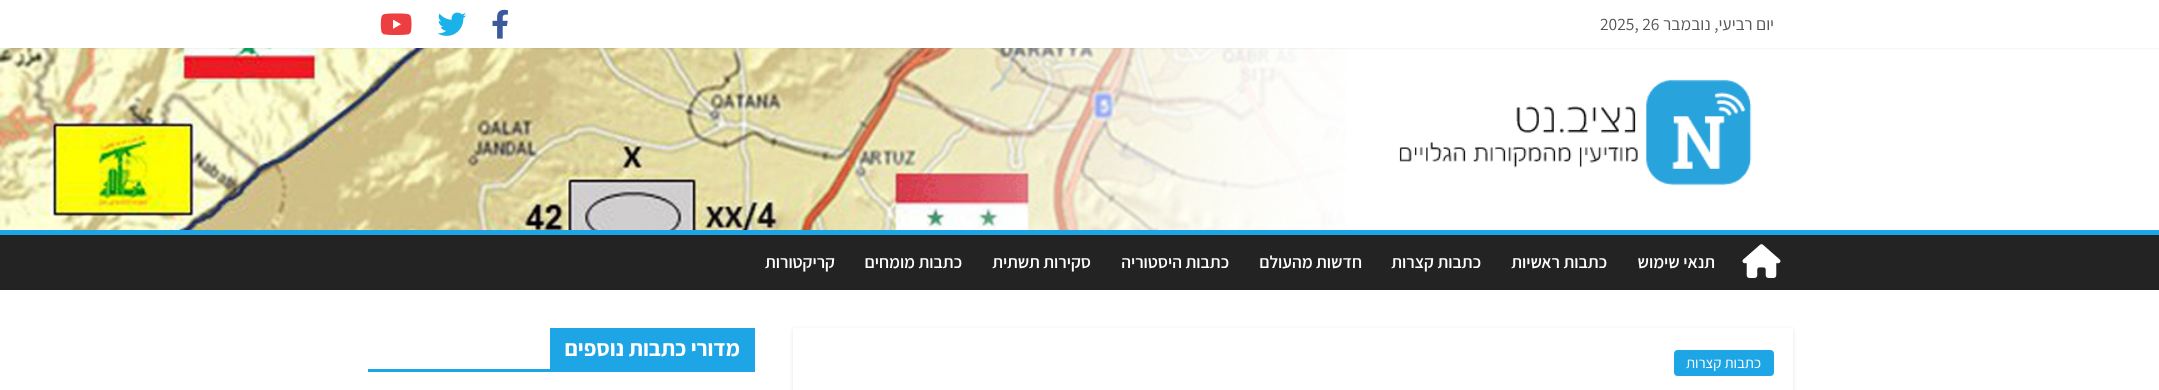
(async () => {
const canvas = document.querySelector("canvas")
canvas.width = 2159
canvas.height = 390
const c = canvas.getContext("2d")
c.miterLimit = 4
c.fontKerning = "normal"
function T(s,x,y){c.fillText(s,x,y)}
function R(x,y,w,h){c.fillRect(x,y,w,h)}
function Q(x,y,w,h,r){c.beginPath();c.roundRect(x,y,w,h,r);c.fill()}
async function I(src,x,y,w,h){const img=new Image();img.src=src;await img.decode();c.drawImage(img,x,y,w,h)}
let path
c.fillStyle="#fff"
R(0,0,2159,390)
await I("1.png",0,48,1347,182)
c.fillStyle="#0000001a"
c.filter="blur(1px)"
c.beginPath()
c.rect(0,0,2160,48)
c.fill()
c.filter="none"
c.fillStyle="#fff"
R(0,0,2159,48)
c.direction="rtl"
c.font="17.5px Assistant"
c.fillStyle="#555"
T("יום רביעי, נובמבר",1774,30)
c.direction="ltr"
T("2025, 26",1600,30)
await I("2.png",492,9,16,30)
await I("3.png",437,12,30,24)
await I("4.png",380,13,32,22)
await I("5.png",1399,79,353,107)
c.fillStyle="#232323"
R(0,235,2159,55)
c.fillStyle="#1ea5e6"
R(0,230,2159,5)
await I("6.png",1742,244,39,34)
c.direction="rtl"
c.font="600 17.5px Assistant"
c.fillStyle="#fff"
T("תנאי שימוש",1715,268)
T("כתבות ראשיות",1607,268)
T("כתבות קצרות",1481,268)
T("חדשות מהעולם",1362,268)
T("כתבות היסטוריה",1229,268)
T("סקירות תשתית",1091,268)
T("כתבות מומחים",962,268)
T("קריקטורות",835,268)
c.fillStyle="#1ea5e6"
R(368,369,387,3)
R(550,328,205,41)
c.font="bold 22.5px Assistant"
c.fillStyle="#fff"
T("מדורי כתבות נוספים",740,356)
c.save()
path = new Path2D("M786 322h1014v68h-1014zm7 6h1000v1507h-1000z")
c.clip(path,"evenodd")
c.fillStyle="#0000001a"
c.filter="blur(2px)"
c.beginPath()
c.rect(793,329,1000,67)
c.fill()
c.filter="none"
c.restore()
c.fillStyle="#1ea5e6"
Q(1674,350,100,26,4)
c.font="15px Assistant"
c.fillStyle="#fff"
T("כתבות קצרות",1761,368)
})()
